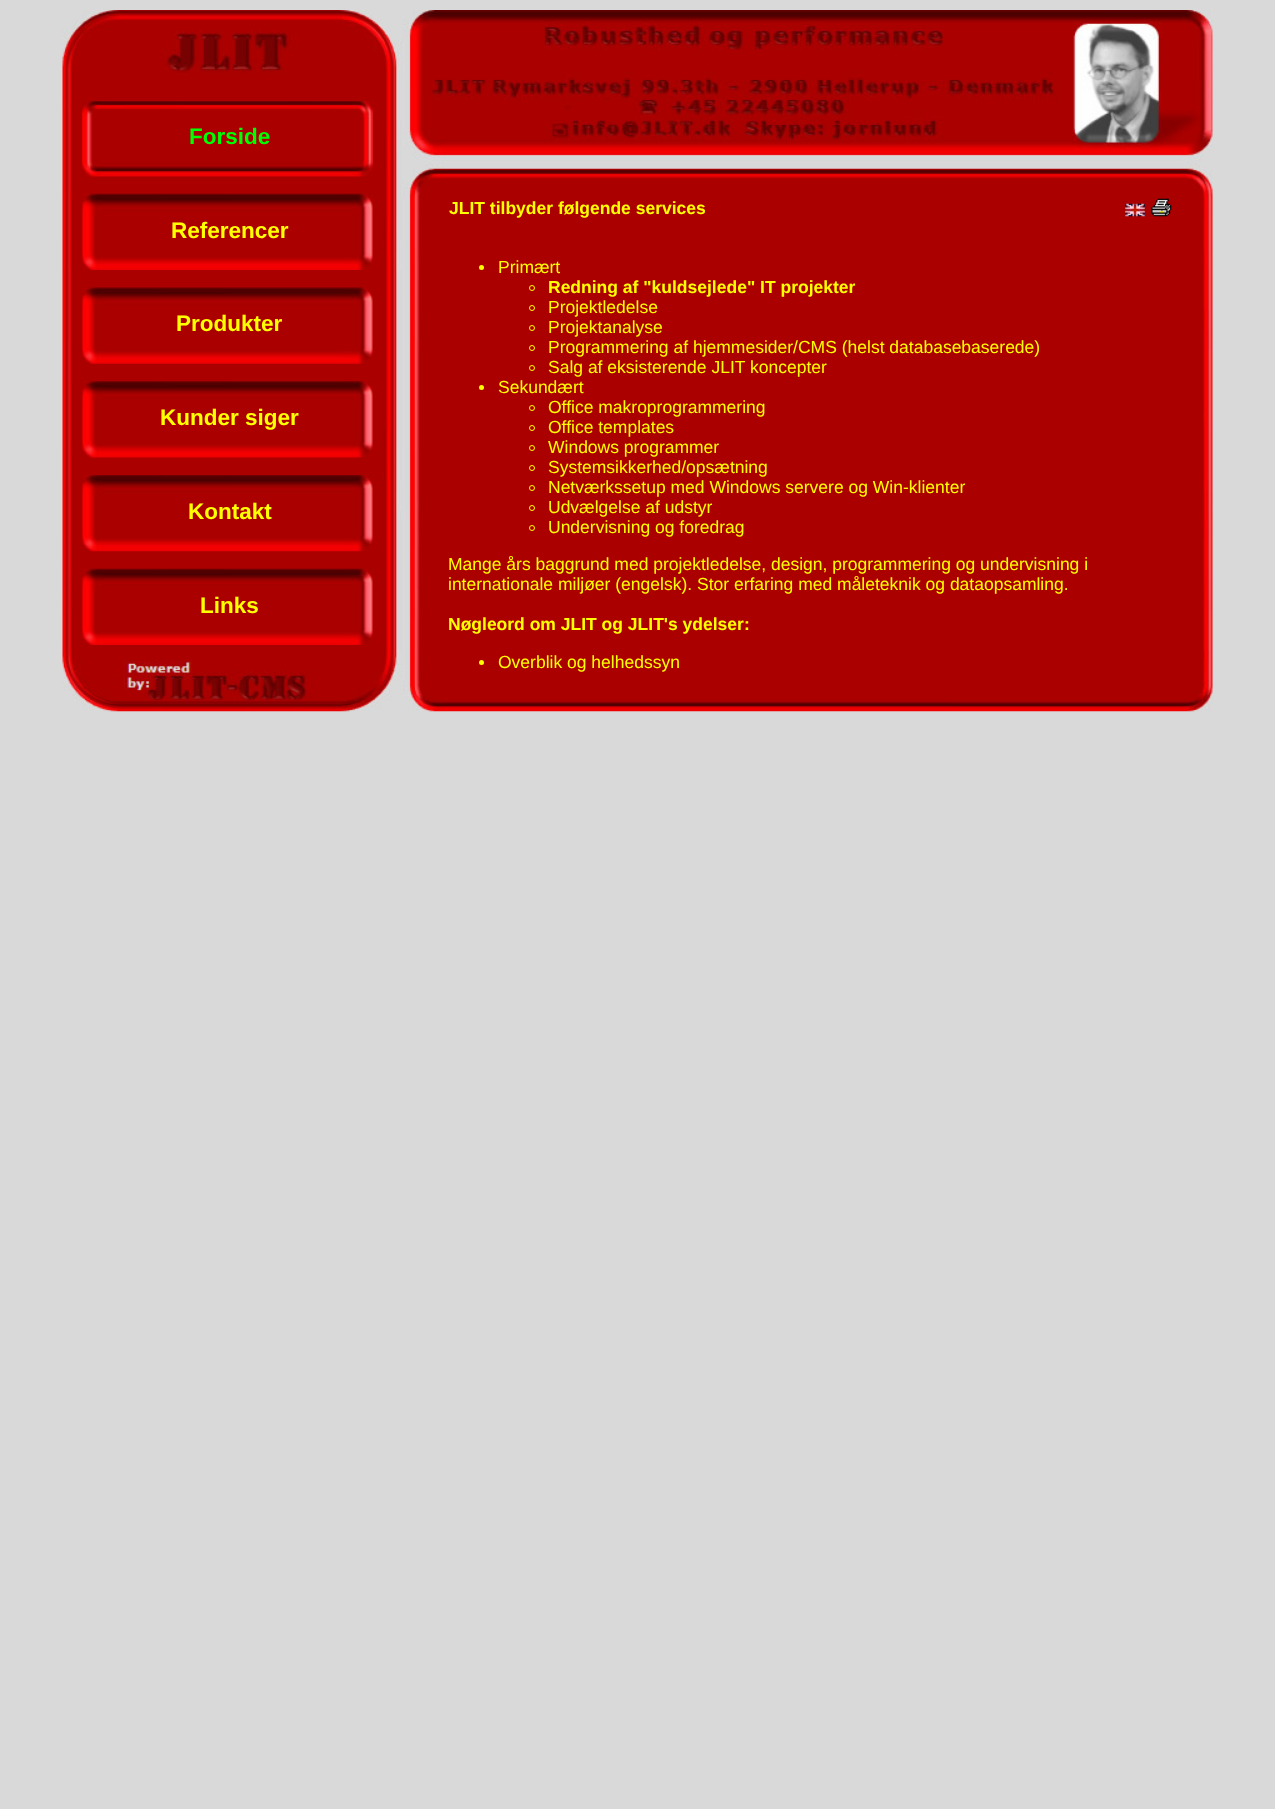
(async () => {
const canvas = document.querySelector("canvas")
canvas.width = 1275
canvas.height = 1809
const c = canvas.getContext("2d")
c.miterLimit = 4
c.fontKerning = "normal"
function T(s,x,y){c.fillText(s,x,y)}
function R(x,y,w,h){c.fillRect(x,y,w,h)}
async function I(src,x,y,w,h){const img=new Image();img.src=src;await img.decode();c.drawImage(img,x,y,w,h)}
c.fillStyle="#d9d9d9"
R(0,0,1275,1809)
await I("1.png",62,10,1151,702)
await I("2.png",82,100,291,77)
await I("3.png",82,100,291,77)
c.font="bold 22.5px Liberation Sans"
c.fillStyle="#0f0"
T("Forside",189,144)
await I("4.png",82,193,291,77)
c.fillStyle="#ff0"
T("Referencer",171,238)
await I("5.png",82,287,291,77)
T("Produkter",176,331)
await I("6.png",82,381,291,77)
T("Kunder siger",160,425)
await I("2.png",82,475,291,77)
T("Kontakt",188,519)
await I("7.png",82,568,291,77)
T("Links",200,613)
c.font="bold 17.5px Liberation Sans"
T("JLIT tilbyder følgende services",449,214)
await I("8.png",1125,203,20,14)
await I("9.png",1151,198,21,19)
c.beginPath()
c.arc(481.5,267.5,2.5,0,7)
c.fill()
c.font="17.5px Liberation Sans"
T("Primært",498,273)
c.beginPath()
c.arc(532,288,2.5,0,7)
c.strokeStyle="#ff0"
c.stroke()
c.font="bold 17.5px Liberation Sans"
T("Redning af \"kuldsejlede\" IT projekter",548,293)
c.beginPath()
c.arc(532,308,2.5,0,7)
c.stroke()
c.font="17.5px Liberation Sans"
T("Projektledelse",548,313)
c.beginPath()
c.arc(532,328,2.5,0,7)
c.stroke()
T("Projektanalyse",548,333)
c.beginPath()
c.arc(532,348,2.5,0,7)
c.stroke()
T("Programmering af hjemmesider/CMS (helst databasebaserede)",548,353)
c.beginPath()
c.arc(532,368,2.5,0,7)
c.stroke()
T("Salg af eksisterende JLIT koncepter",548,373)
c.beginPath()
c.arc(481.5,387.5,2.5,0,7)
c.fill()
T("Sekundært",498,393)
c.beginPath()
c.arc(532,408,2.5,0,7)
c.stroke()
T("Office makroprogrammering",548,413)
c.beginPath()
c.arc(532,428,2.5,0,7)
c.stroke()
T("Office templates",548,433)
c.beginPath()
c.arc(532,448,2.5,0,7)
c.stroke()
T("Windows programmer",548,453)
c.beginPath()
c.arc(532,468,2.5,0,7)
c.stroke()
T("Systemsikkerhed/opsætning",548,473)
c.beginPath()
c.arc(532,488,2.5,0,7)
c.stroke()
T("Netværkssetup med Windows servere og Win-klienter",548,493)
c.beginPath()
c.arc(532,508,2.5,0,7)
c.stroke()
T("Udvælgelse af udstyr",548,513)
c.beginPath()
c.arc(532,528,2.5,0,7)
c.stroke()
T("Undervisning og foredrag",548,533)
T("Mange års baggrund med projektledelse, design, programmering og undervisning i",448,570)
T("internationale miljøer (engelsk). Stor erfaring med måleteknik og dataopsamling.",448,590)
c.font="bold 17.5px Liberation Sans"
T("Nøgleord om JLIT og JLIT's ydelser:",448,630)
c.beginPath()
c.arc(481.5,662.5,2.5,0,7)
c.fill()
c.font="17.5px Liberation Sans"
T("Overblik og helhedssyn",498,668)
})()
